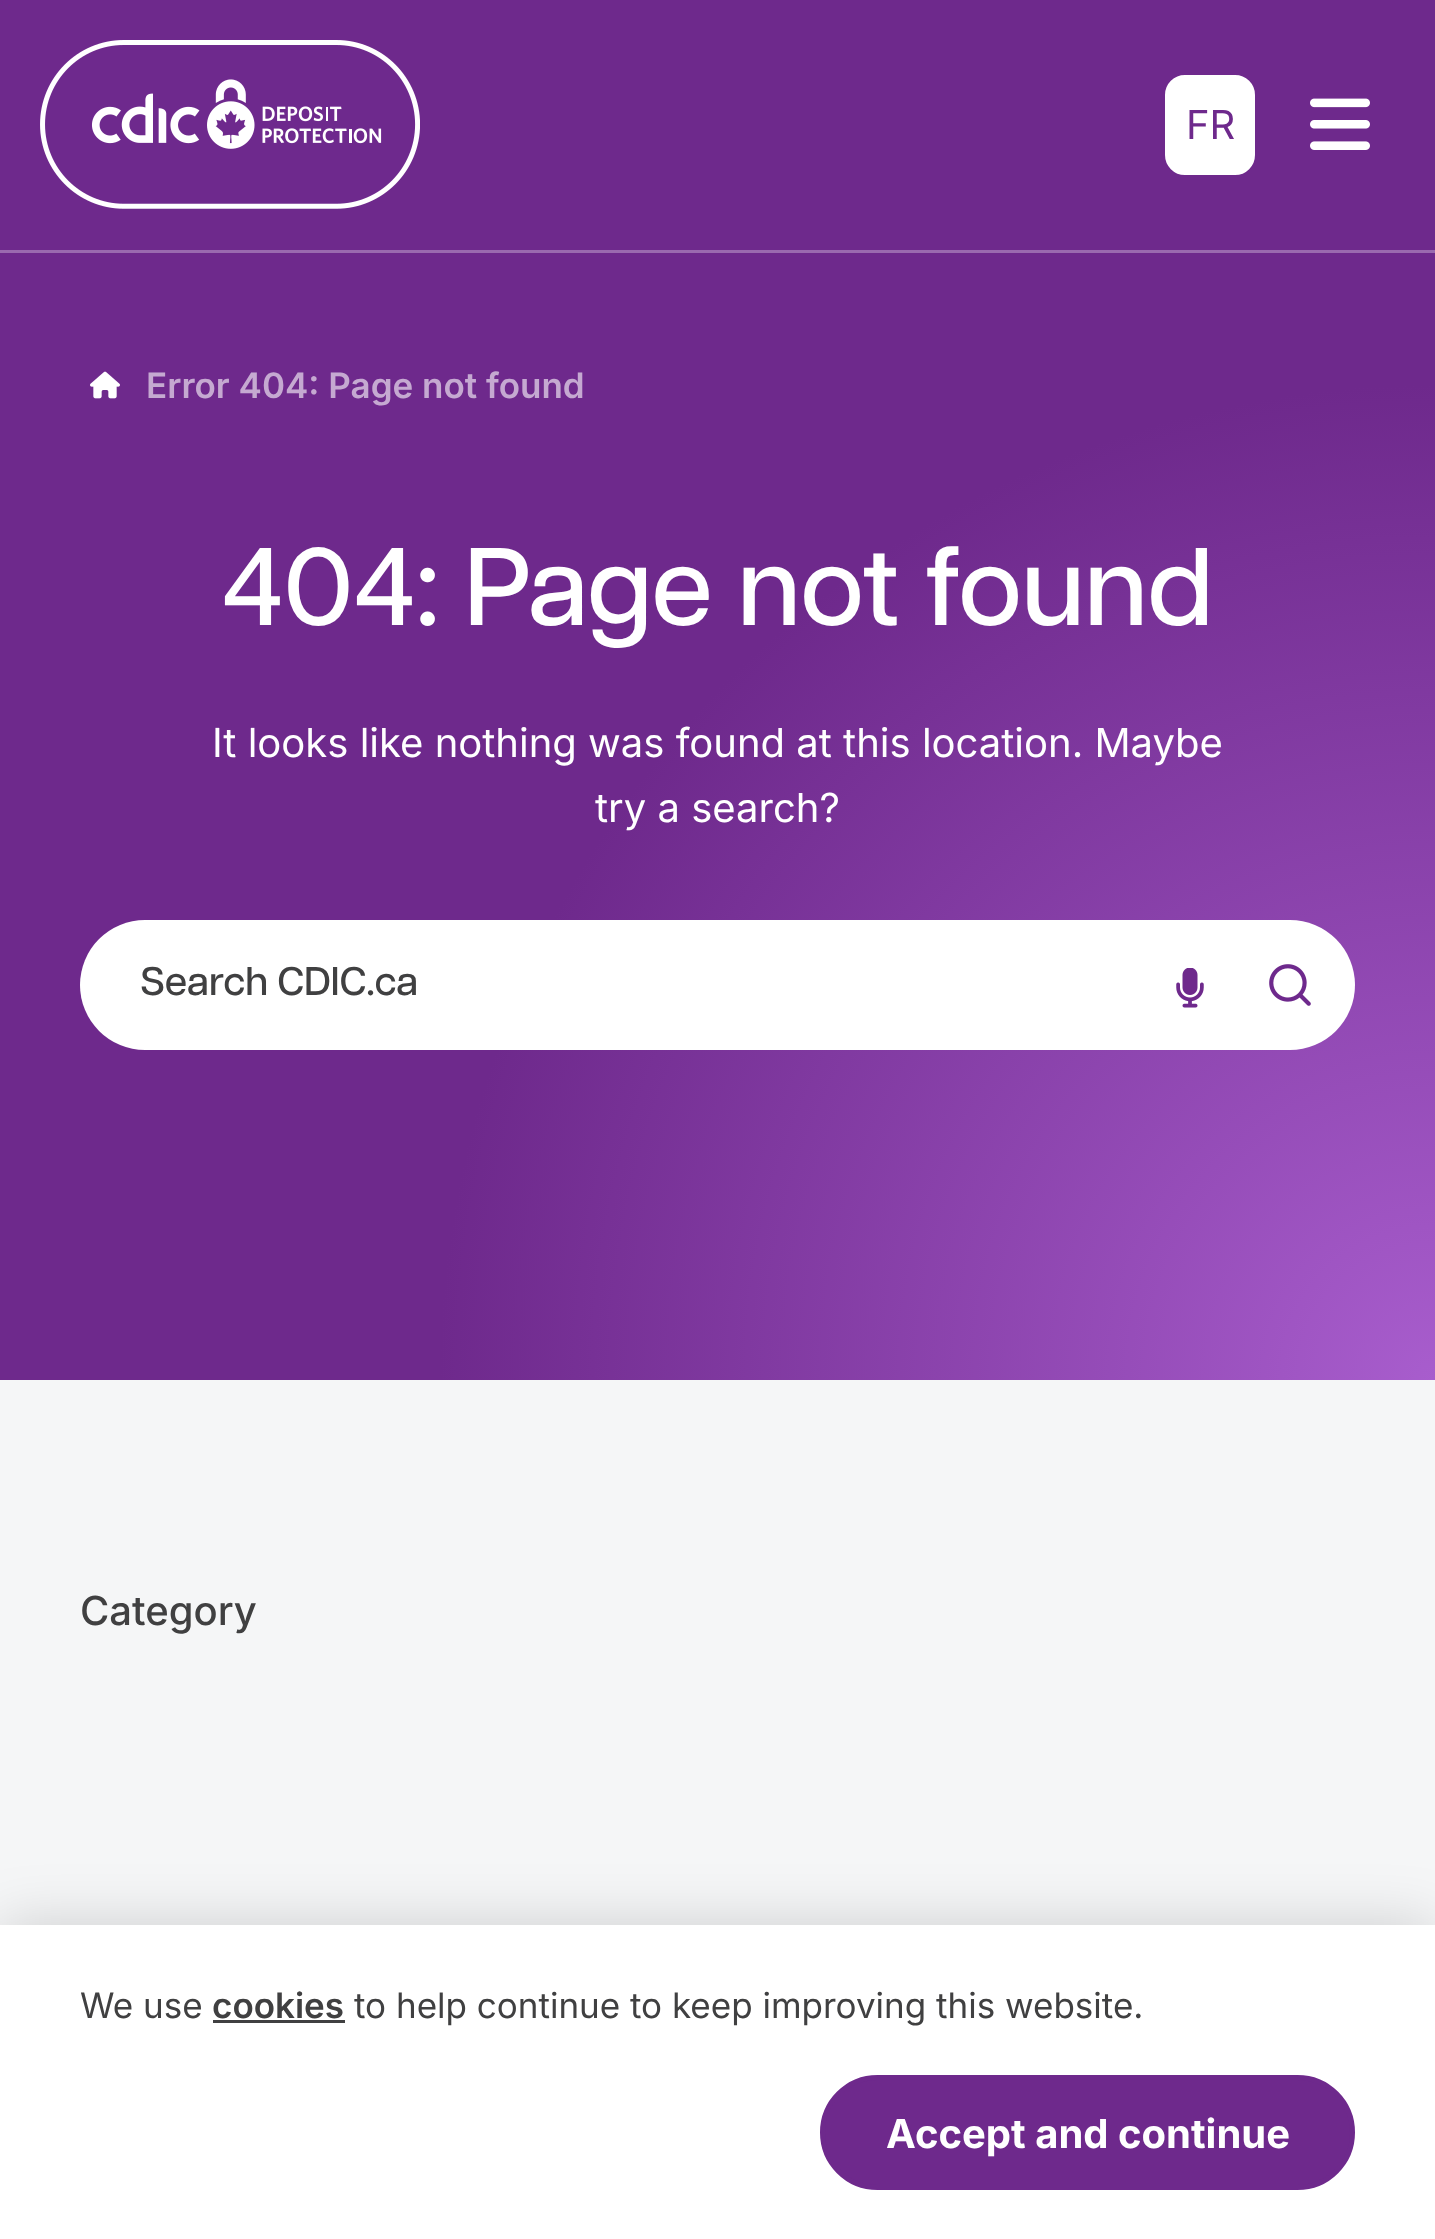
(async () => {
const canvas = document.querySelector("canvas")
canvas.width = 1435
canvas.height = 2239
const c = canvas.getContext("2d")
c.miterLimit = 4
c.fontKerning = "normal"
function T(s,x,y){c.fillText(s,x,y)}
function R(x,y,w,h){c.fillRect(x,y,w,h)}
function Q(x,y,w,h,r){c.beginPath();c.roundRect(x,y,w,h,r);c.fill()}
async function I(src,x,y,w,h){const img=new Image();img.src=src;await img.decode();c.drawImage(img,x,y,w,h)}
let gradient
c.fillStyle="#f5f6f7"
R(0,0,1435,2239)
gradient = c.createRadialGradient(1435,1380,0,1435,1380,1991)
gradient.addColorStop(0,"#a85dcd")
gradient.addColorStop(.5,"#6e298c")
gradient.addColorStop(1,"#6e298c")
c.fillStyle = gradient
R(0,0,1435,1380)
c.fillStyle="#9a69af"
R(0,250,1435,3)
await I("1.png",40,40,380,169)
c.fillStyle="#fff"
c.beginPath()
c.roundRect(1166.5,76.5,87,97,18.5)
c.fill()
c.strokeStyle="#fff"
c.lineWidth=3
c.stroke()
c.font="40px Inter"
c.fillStyle="#6e298c"
T("FR",1186,139)
await I("2.png",1310,98,60,52)
await I("3.png",90,371,30,28)
c.font="600 35px Inter"
c.fillStyle="#c5a9d1"
T("Error 404: Page not found",146,398)
c.font="500 110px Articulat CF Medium"
c.fillStyle="#fff"
T("404: Page not found",221,625)
c.font="40px Inter"
T("It looks like nothing was found at this location. Maybe",212,757)
T("try a search?",595,822)
Q(80,920,1275,130,65)
c.font="500 40px Articulat CF Medium"
c.fillStyle="#404041"
T("Search CDIC.ca",140,995)
await I("4.png",1269,964,42,42)
await I("5.png",1176,968,28,40)
c.font="500 40px Inter"
T("Category",80,1625)
c.fillStyle="#00000029"
c.filter="blur(30px)"
c.beginPath()
c.rect(0,1925,1435,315)
c.fill()
c.filter="none"
c.fillStyle="#fff"
R(0,1925,1435,314)
c.font="35px Inter"
c.fillStyle="#404041"
T("We use",80,2018)
c.font="600 35px Inter"
T("cookies",212,2018)
R(213,2020,132,3)
c.font="35px Inter"
T("to help continue to keep improving this website.",354,2018)
c.fillStyle="#6e298c"
c.beginPath()
c.roundRect(822.5,2077.5,530,110,55)
c.fill()
c.strokeStyle="#6e298c"
c.lineWidth=5
c.stroke()
c.font="bold 40px Inter"
c.fillStyle="#fff"
T("Accept and continue",886,2148)
})()
